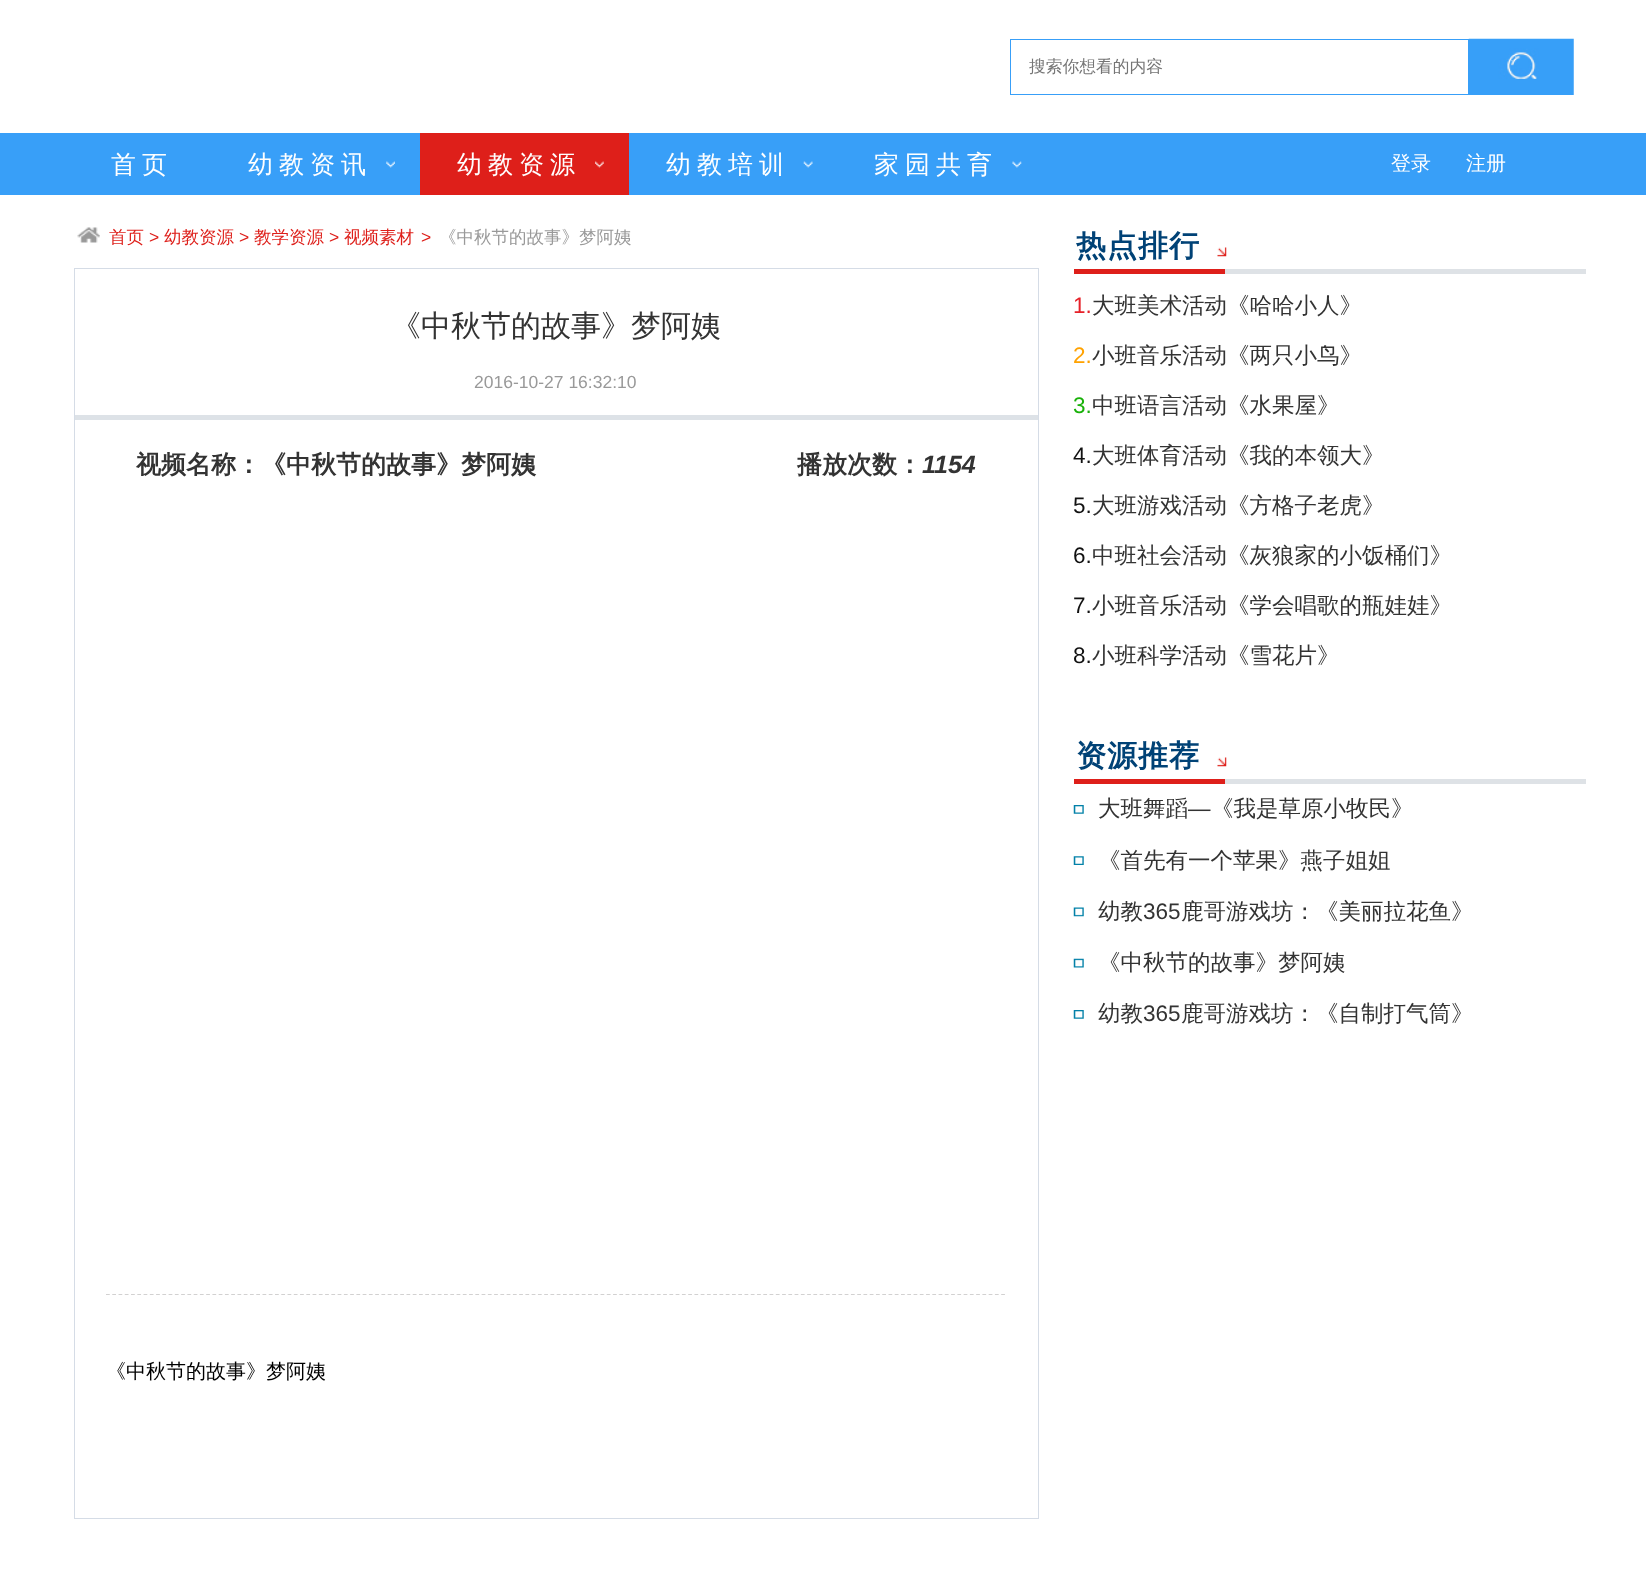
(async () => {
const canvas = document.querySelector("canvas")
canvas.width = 1646
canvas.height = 1581
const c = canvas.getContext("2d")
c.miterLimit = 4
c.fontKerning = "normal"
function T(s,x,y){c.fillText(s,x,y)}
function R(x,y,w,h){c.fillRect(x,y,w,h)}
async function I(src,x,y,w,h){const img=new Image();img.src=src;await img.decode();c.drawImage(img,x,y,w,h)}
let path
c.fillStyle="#fff"
R(0,0,1646,1581)
c.strokeStyle="#389ff8"
c.strokeRect(1010.5,39.5,458,55)
c.font="500 16.75px WenQuanYi Zen Hei"
c.fillStyle="#757575"
T("搜索你想看的内容",1029,72)
await I("1.png",1468,38,106,57)
c.fillStyle="#389ff8"
R(0,133,1646,62)
c.letterSpacing="6px"
c.font="500 25px WenQuanYi Zen Hei"
c.fillStyle="#fff"
T("首页",111,173)
T("幼教资讯",248,173)
await I("2.png",386,161,9,7)
c.fillStyle="#de1f1a"
R(420,133,209,62)
c.fillStyle="#fff"
T("幼教资源",457,173)
await I("3.png",595,161,9,7)
T("幼教培训",666,173)
await I("4.png",803,161,10,7)
T("家园共育",874,173)
await I("5.png",1012,161,10,7)
c.letterSpacing="0px"
c.font="500 20px WenQuanYi Zen Hei"
T("登录",1391,170)
T("注册",1466,170)
await I("6.png",77,227,23,16)
c.font="500 17.5px WenQuanYi Zen Hei"
c.fillStyle="#de1f1a"
T("首页",109,243)
c.font="17.5px Liberation Sans"
T(">",149,243)
c.font="500 17.5px WenQuanYi Zen Hei"
T("幼教资源",164,243)
c.font="17.5px Liberation Sans"
T(">",239,243)
c.font="500 17.5px WenQuanYi Zen Hei"
T("教学资源",254,243)
c.font="17.5px Liberation Sans"
T(">",329,243)
c.font="500 17.5px WenQuanYi Zen Hei"
T("视频素材",344,243)
c.font="17.5px Liberation Sans"
T(">",421,243)
c.font="500 17.5px WenQuanYi Zen Hei"
c.fillStyle="#999"
T("《中秋节的故事》梦阿姨",439,243)
c.strokeStyle="#d5dce6"
c.strokeRect(74.5,268.5,964,1250)
c.fillStyle="#dde2e7"
R(75,415,963,5)
c.font="500 30px WenQuanYi Zen Hei"
c.fillStyle="#333"
T("《中秋节的故事》梦阿姨",391,336)
c.font="17.5px Liberation Sans"
c.fillStyle="#999"
T("2016-10-27 16:32:10",474,388)
c.font="bold 25px WenQuanYi Zen Hei"
c.fillStyle="#333"
T("视频名称：《中秋节的故事》梦阿姨",136,473)
T("播放次数：",797,473)
c.font="italic bold 25px Liberation Sans"
T("1154",922,473)
path = new Path2D("M106 1294.5h900")
c.strokeStyle="#d2d1d1"
c.lineWidth=1.2
c.setLineDash([3.75,2.51])
c.stroke(path)
c.font="500 20px WenQuanYi Zen Hei"
c.fillStyle="#000"
T("《中秋节的故事》梦阿姨",106,1378)
c.fillStyle="#dee2e6"
R(1225,269,361,5)
c.fillStyle="#de1f1a"
R(1074,269,151,5)
c.letterSpacing="1px"
c.font="bold 30px WenQuanYi Zen Hei"
c.fillStyle="#004276"
T("热点排行",1076,256)
await I("7.png",1217,247,10,10)
c.letterSpacing="0px"
c.font="22.5px Liberation Sans"
c.fillStyle="#e62129"
T("1.",1073,313)
c.font="500 22.5px WenQuanYi Zen Hei"
c.fillStyle="#333"
T("大班美术活动《哈哈小人》",1092,313)
c.font="22.5px Liberation Sans"
c.fillStyle="#ffa200"
T("2.",1073,363)
c.font="500 22.5px WenQuanYi Zen Hei"
c.fillStyle="#333"
T("小班音乐活动《两只小鸟》",1092,363)
c.font="22.5px Liberation Sans"
c.fillStyle="#19b109"
T("3.",1073,413)
c.font="500 22.5px WenQuanYi Zen Hei"
c.fillStyle="#333"
T("中班语言活动《水果屋》",1092,413)
c.font="22.5px Liberation Sans"
c.fillStyle="#111"
T("4.",1073,463)
c.font="500 22.5px WenQuanYi Zen Hei"
c.fillStyle="#333"
T("大班体育活动《我的本领大》",1092,463)
c.font="22.5px Liberation Sans"
c.fillStyle="#111"
T("5.",1073,513)
c.font="500 22.5px WenQuanYi Zen Hei"
c.fillStyle="#333"
T("大班游戏活动《方格子老虎》",1092,513)
c.font="22.5px Liberation Sans"
c.fillStyle="#111"
T("6.",1073,563)
c.font="500 22.5px WenQuanYi Zen Hei"
c.fillStyle="#333"
T("中班社会活动《灰狼家的小饭桶们》",1092,563)
c.font="22.5px Liberation Sans"
c.fillStyle="#111"
T("7.",1073,613)
c.font="500 22.5px WenQuanYi Zen Hei"
c.fillStyle="#333"
T("小班音乐活动《学会唱歌的瓶娃娃》",1092,613)
c.font="22.5px Liberation Sans"
c.fillStyle="#111"
T("8.",1073,663)
c.font="500 22.5px WenQuanYi Zen Hei"
c.fillStyle="#333"
T("小班科学活动《雪花片》",1092,663)
c.fillStyle="#dee2e6"
R(1225,779,361,5)
c.fillStyle="#de1f1a"
R(1074,779,151,5)
c.letterSpacing="1px"
c.font="bold 30px WenQuanYi Zen Hei"
c.fillStyle="#004276"
T("资源推荐",1076,766)
await I("7.png",1217,757,10,10)
await I("8.png",1073,805,11,9)
c.letterSpacing="0px"
c.font="500 22.5px WenQuanYi Zen Hei"
c.fillStyle="#333"
T("大班舞蹈",1098,816)
c.font="22.5px Liberation Sans"
T("—",1188,816)
c.font="500 22.5px WenQuanYi Zen Hei"
T("《我是草原小牧民》",1211,816)
await I("9.png",1073,856,11,9)
T("《首先有一个苹果》燕子姐姐",1098,868)
await I("10.png",1073,907,11,10)
T("幼教",1098,919)
c.font="22.5px Liberation Sans"
T("365",1143,919)
c.font="500 22.5px WenQuanYi Zen Hei"
T("鹿哥游戏坊：《美丽拉花鱼》",1181,919)
await I("11.png",1073,958,11,10)
T("《中秋节的故事》梦阿姨",1098,970)
await I("8.png",1073,1010,11,9)
T("幼教",1098,1021)
c.font="22.5px Liberation Sans"
T("365",1143,1021)
c.font="500 22.5px WenQuanYi Zen Hei"
T("鹿哥游戏坊：《自制打气筒》",1181,1021)
})()
